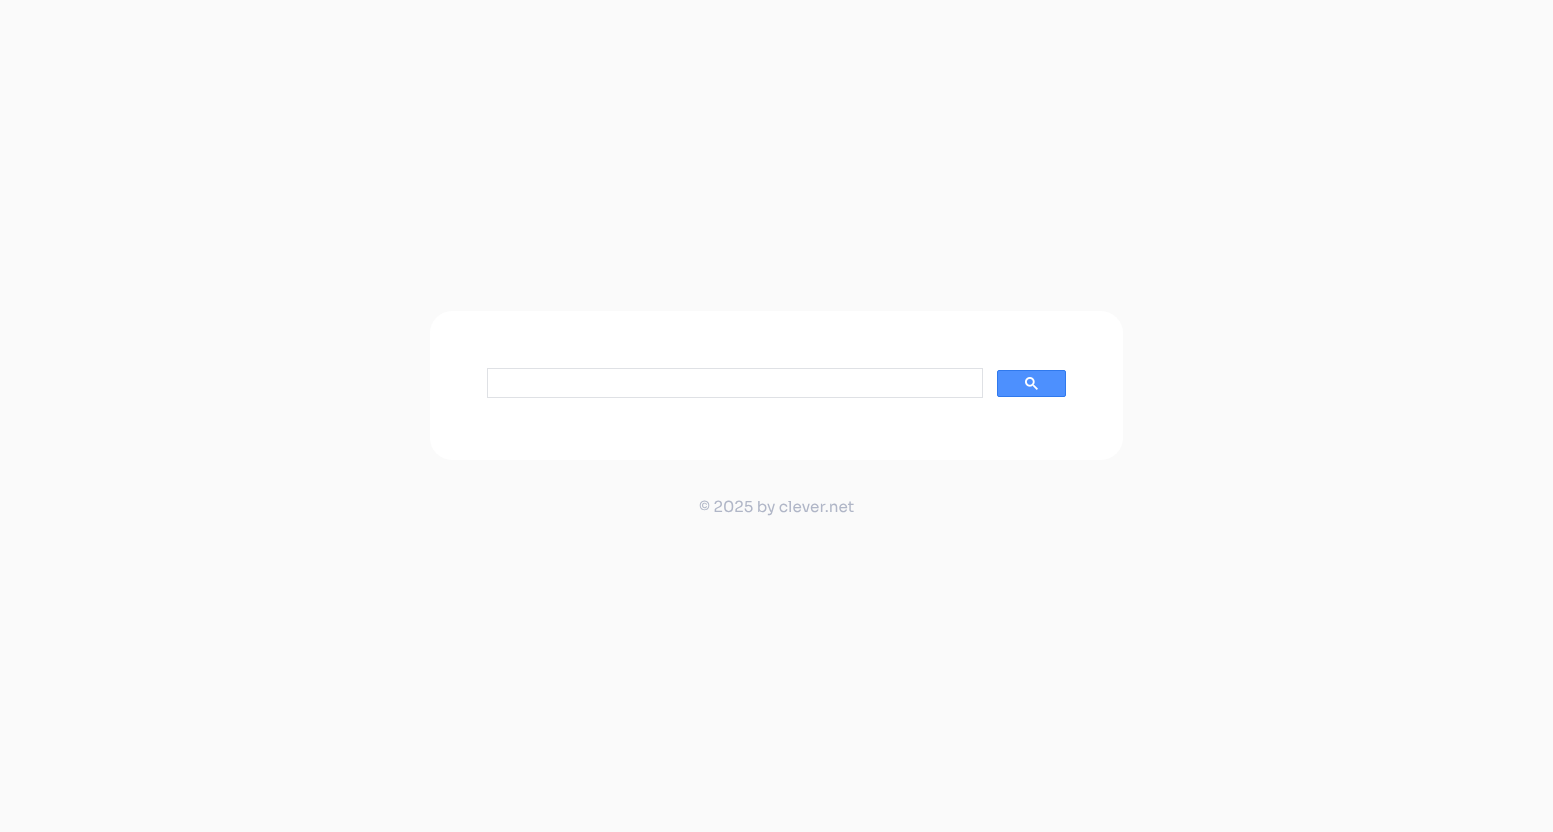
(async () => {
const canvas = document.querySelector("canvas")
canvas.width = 1553
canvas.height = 832
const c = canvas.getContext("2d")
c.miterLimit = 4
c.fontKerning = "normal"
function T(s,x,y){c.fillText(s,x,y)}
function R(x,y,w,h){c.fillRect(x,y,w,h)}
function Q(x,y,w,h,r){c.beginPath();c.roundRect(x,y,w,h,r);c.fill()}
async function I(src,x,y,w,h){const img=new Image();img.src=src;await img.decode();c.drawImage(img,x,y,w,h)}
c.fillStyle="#fafafa"
R(0,0,1553,832)
c.fillStyle="#fff"
Q(430,311,693,149,22)
c.strokeStyle="#dfe1e5"
c.strokeRect(487.5,368.5,495,29)
c.fillStyle="#4d90fe"
c.beginPath()
c.roundRect(997.5,370.5,68,26,1.5)
c.fill()
c.strokeStyle="#3079ed"
c.stroke()
await I("1.png",1025,377,13,13)
c.font="15.25px Sora"
c.fillStyle="#b0b6c7"
T("© 2025 by clever.net",699,512)
})()
